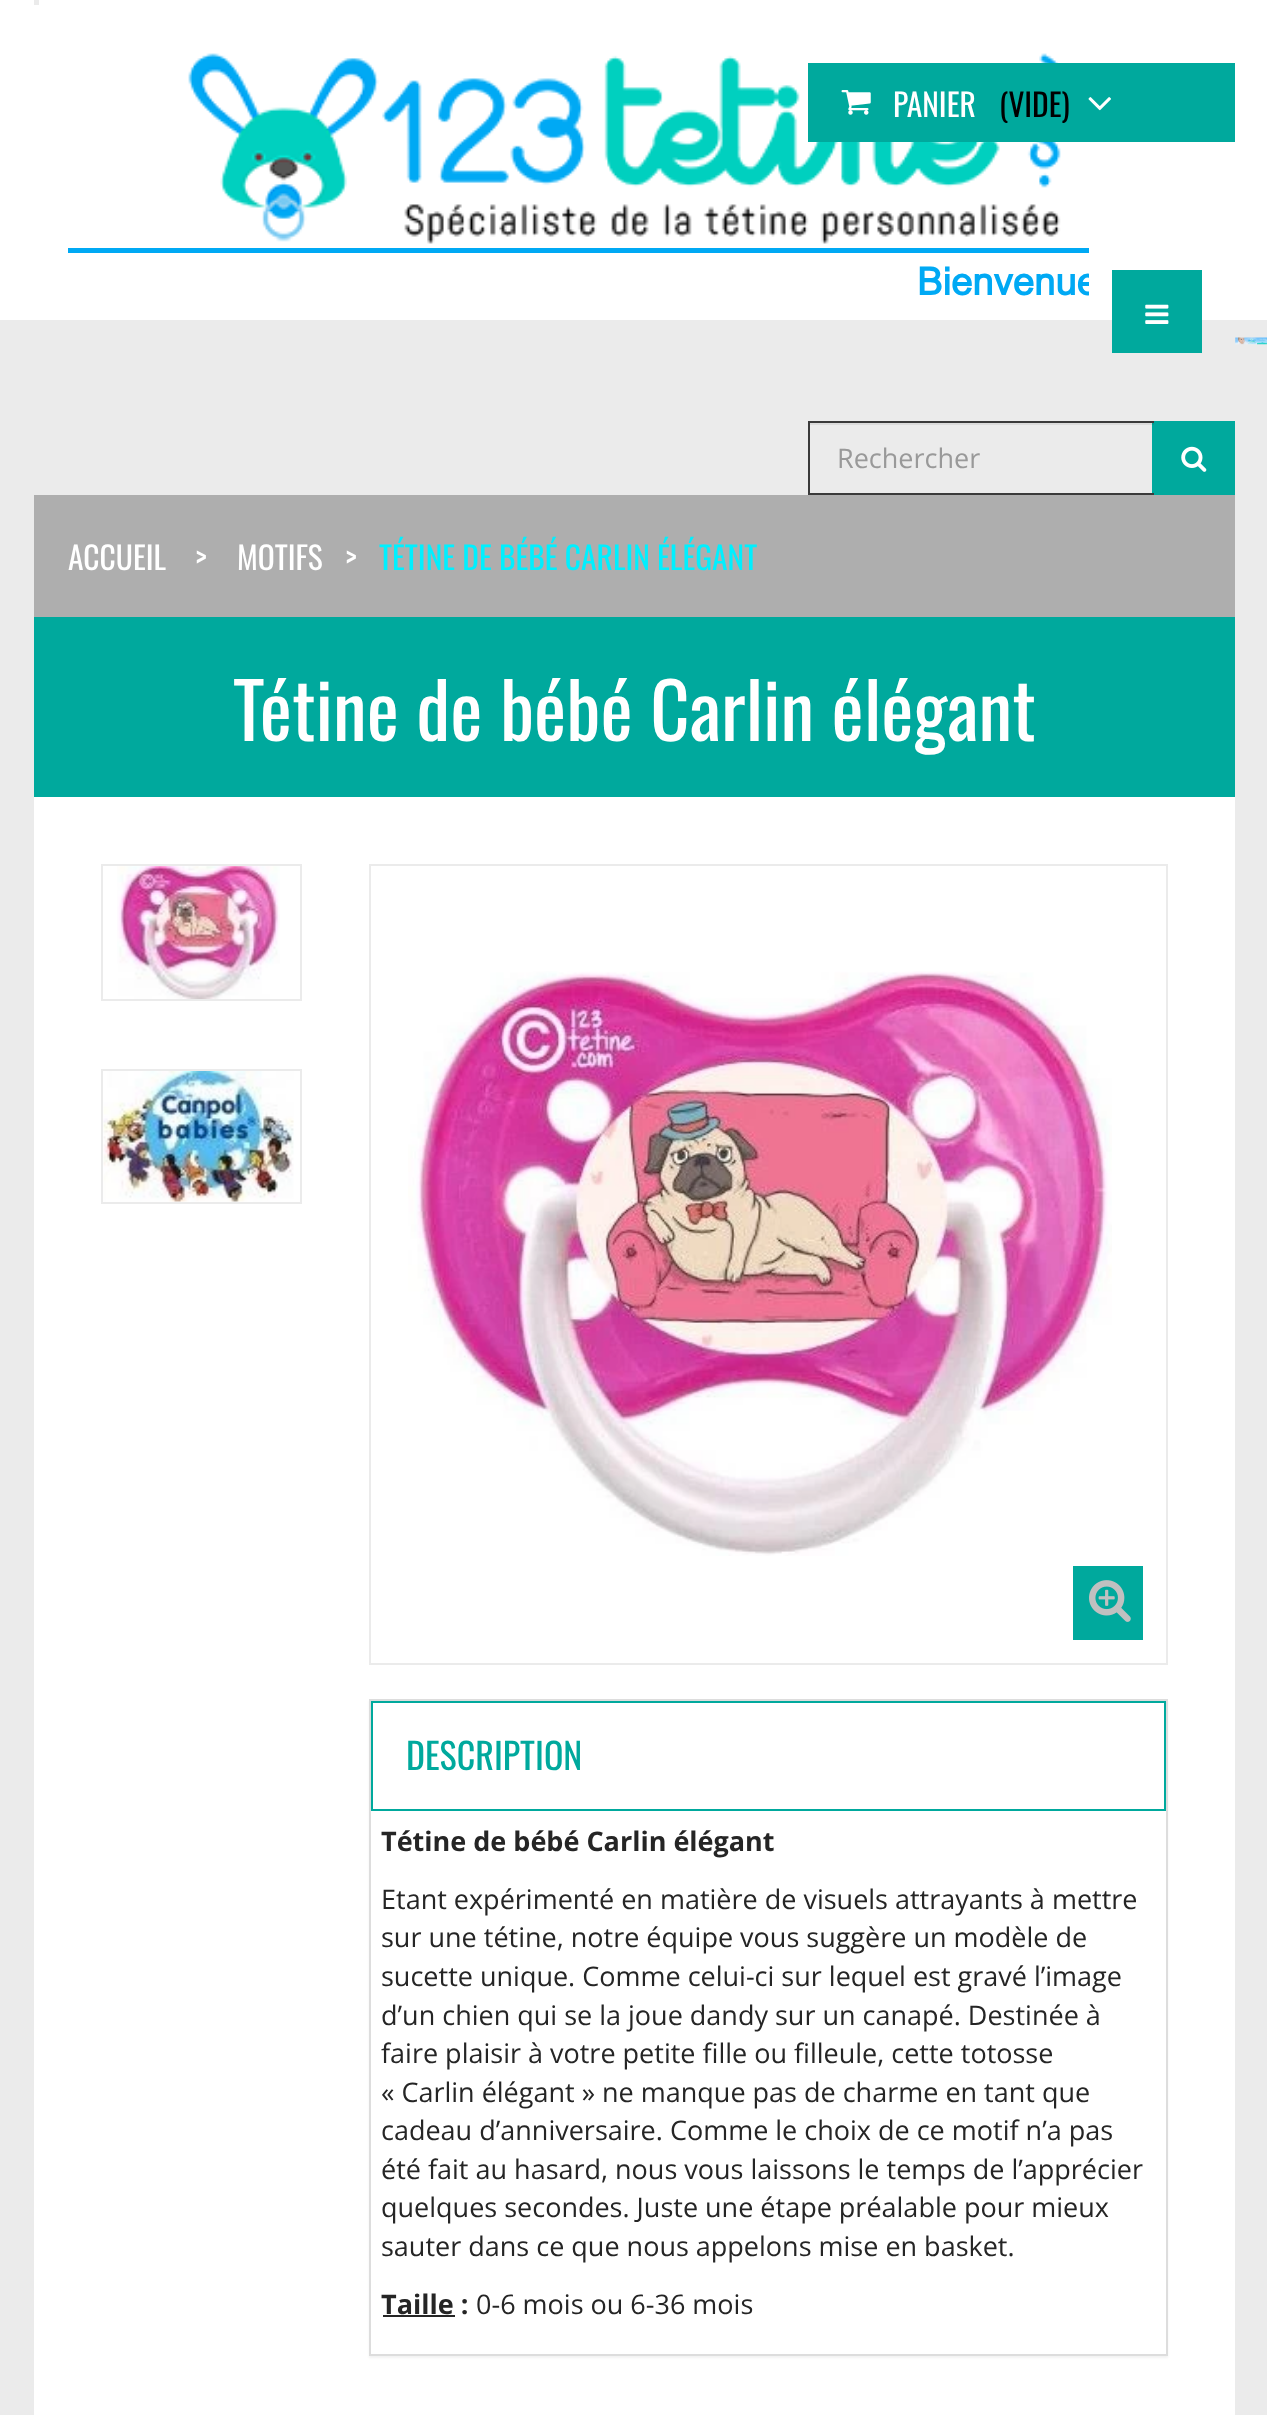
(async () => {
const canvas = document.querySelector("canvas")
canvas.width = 1267
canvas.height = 2415
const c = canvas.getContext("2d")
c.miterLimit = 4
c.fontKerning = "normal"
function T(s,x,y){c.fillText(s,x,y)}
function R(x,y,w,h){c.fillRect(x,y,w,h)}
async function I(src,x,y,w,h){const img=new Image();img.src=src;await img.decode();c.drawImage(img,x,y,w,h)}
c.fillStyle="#ebebeb"
R(0,0,1267,2415)
c.fillStyle="#dbdbdb"
R(810,423,344,2)
c.fillStyle="#fff"
R(0,0,1267,320)
c.fillStyle="#ebebeb"
R(34,0,5,5)
await I("4.png",188,53,873,191)
c.fillStyle="#00a99d"
R(808,63,427,79)
await I("1.png",841,90,30,25)
c.font="31.5px Oswald"
c.fillStyle="#fff"
T("PANIER",893,117)
c.fillStyle="#000"
T("(VIDE)",999,117)
await I("2.png",1088,97,23,14)
c.fillStyle="#00a99d"
R(1152,421,83,74)
c.fillStyle="#3a3a3a"
R(808,421,346,2)
R(808,493,346,2)
R(808,421,2,74)
c.font="27px Open Sans"
c.fillStyle="#999"
T("Rechercher",837,468)
c.fillStyle="#009d92"
R(1152,423,2,2)
await I("3.png",1181,446,26,26)
c.fillStyle="#00a9f4"
R(68,248,1021,5)
c.save()
c.beginPath()
c.rect(68,257,1021,47)
c.clip()
c.font="bold 38.25px Arial"
T("Bienvenue",917,295)
c.restore()
c.fillStyle="#00a99d"
R(1112,270,90,83)
await I("5.png",1145,304,24,20)
await I("6.png",1235,337,32,8)
c.fillStyle="#aeaeae"
R(34,495,1201,122)
c.font="31.5px Oswald"
c.fillStyle="#fff"
T("ACCUEIL",68,570)
T(">",195,570)
T("MOTIFS",237,570)
T(">",345,570)
c.fillStyle="#00f0ff"
T("TÉTINE DE BÉBÉ CARLIN ÉLÉGANT",379,570)
c.fillStyle="#00a99d"
R(34,617,1201,180)
c.font="76.5px Oswald"
c.fillStyle="#fff"
T("Tétine de bébé Carlin élégant",233,741)
R(34,797,1201,1618)
c.strokeStyle="#ebebeb"
c.lineWidth=2
c.strokeRect(102,865,199,135)
await I("7.png",117,866,163,133)
c.strokeRect(102,1070,199,133)
await I("8.png",103,1071,191,131)
c.strokeRect(370,865,797,799)
await I("9.png",408,971,704,585)
c.fillStyle="#00a99d"
R(1073,1566,70,74)
await I("10.png",1089,1580,42,42)
c.fillStyle="#0000000d"
c.filter="blur(1px)"
c.beginPath()
c.rect(369,1701,799,657)
c.fill()
c.filter="none"
c.fillStyle="#fff"
R(371,1703,795,651)
c.strokeStyle="#ddd"
c.strokeRect(370,1700,797,655)
c.strokeStyle="#00a99d"
c.strokeRect(372,1702,793,108)
c.font="36px Oswald"
c.fillStyle="#00a99d"
T("DESCRIPTION",406,1770)
c.font="bold 27px Open Sans"
c.fillStyle="#252525"
T("Tétine de bébé Carlin élégant",381,1851)
c.font="27px Open Sans"
T("Etant expérimenté en matière de visuels attrayants à mettre",381,1909)
T("sur une tétine, notre équipe vous suggère un modèle de",381,1947)
T("sucette unique. Comme celui-ci sur lequel est gravé l’image",381,1986)
T("d’un chien qui se la joue dandy sur un canapé. Destinée à",381,2025)
T("faire plaisir à votre petite fille ou filleule, cette totosse",381,2063)
T("« Carlin élégant » ne manque pas de charme en tant que",381,2102)
T("cadeau d’anniversaire. Comme le choix de ce motif n’a pas",381,2140)
T("été fait au hasard, nous vous laissons le temps de l’apprécier",381,2179)
T("quelques secondes. Juste une étape préalable pour mieux",381,2217)
T("sauter dans ce que nous appelons mise en basket.",381,2256)
c.font="bold 27px Open Sans"
T("Taille :",381,2314)
R(383,2315,72,2)
c.font="27px Open Sans"
T("0-6 mois ou 6-36 mois",476,2314)
})()
